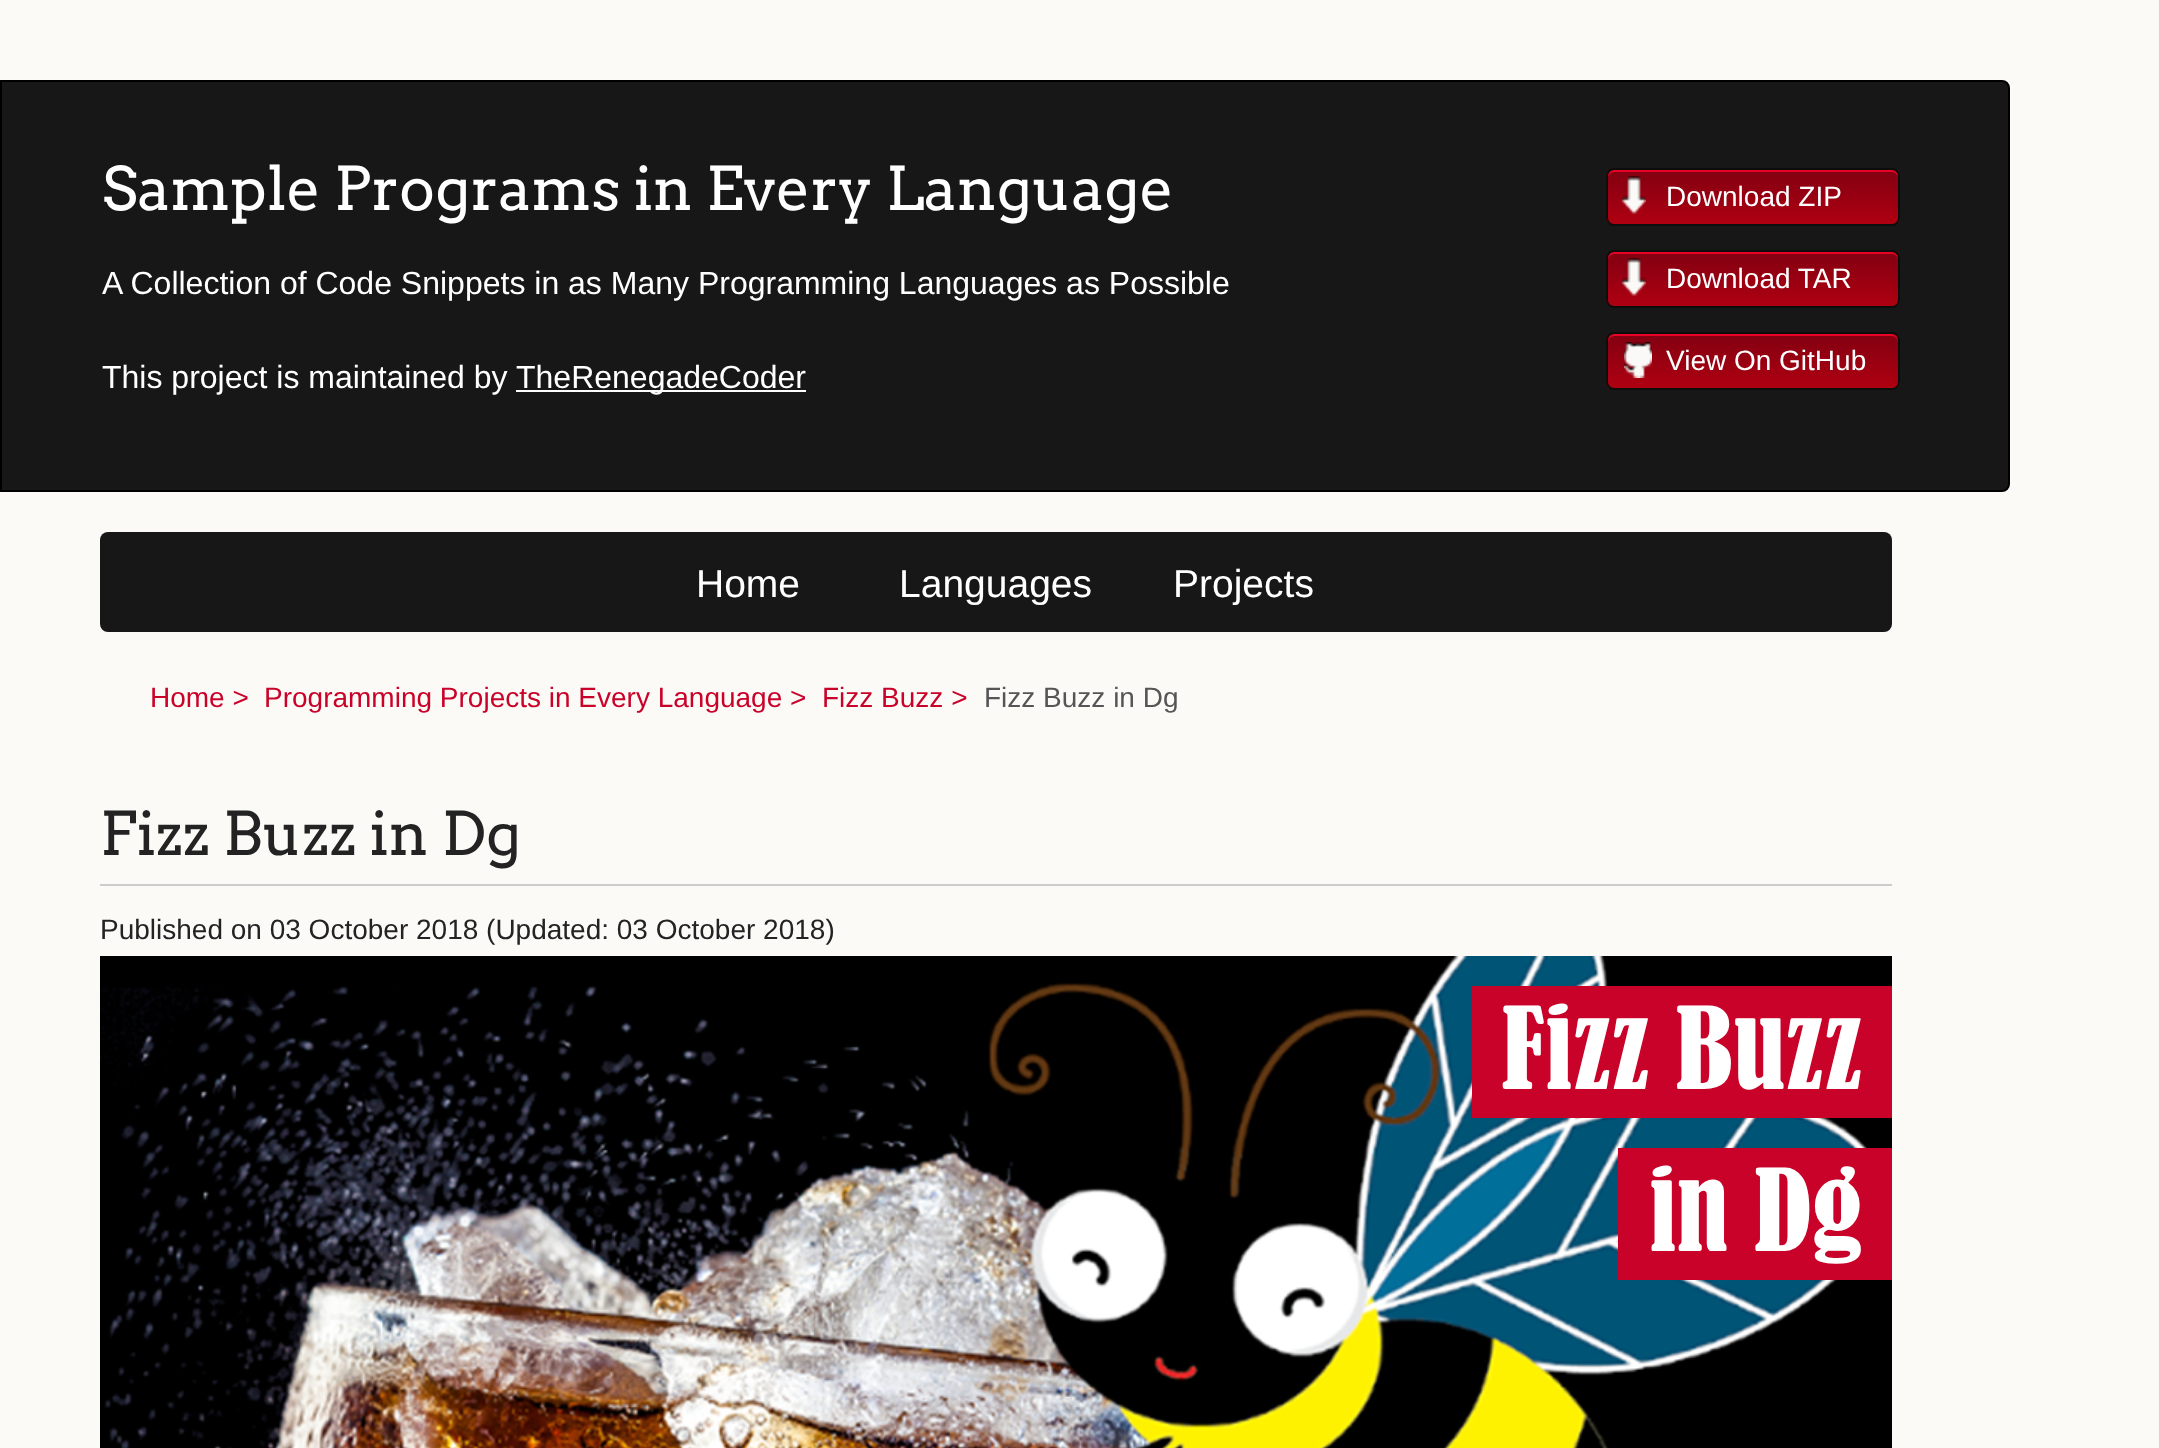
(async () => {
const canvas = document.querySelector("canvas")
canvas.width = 2159
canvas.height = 1448
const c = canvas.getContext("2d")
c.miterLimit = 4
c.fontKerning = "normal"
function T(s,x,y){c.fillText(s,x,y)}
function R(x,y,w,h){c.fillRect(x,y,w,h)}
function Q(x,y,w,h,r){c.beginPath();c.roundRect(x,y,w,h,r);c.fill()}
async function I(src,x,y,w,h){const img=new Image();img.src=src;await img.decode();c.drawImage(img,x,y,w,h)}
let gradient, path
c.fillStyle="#fbfaf7"
R(0,0,2159,1448)
c.fillStyle="#171717"
c.beginPath()
c.roundRect(1,81,2008,410,[0,7,7,0])
c.fill()
c.strokeStyle="#000"
c.lineWidth=2
c.stroke()
c.font="60px Arvo"
c.fillStyle="#fff"
T("Sample Programs in Every Language",102,210)
c.save()
c.beginPath()
c.roundRect(1606,168,294,58,8)
c.clip()
gradient = c.createLinearGradient(1753,224,1753,170)
gradient.addColorStop(0,"#af0011")
gradient.addColorStop(1,"#820011")
c.fillStyle = gradient
R(1606,170,294,54)
c.restore()
c.fillStyle="#e90226"
path = new Path2D("M1614 172h278c3 0 6 3 6 6v-2c0-3-3-6-6-6h-278c-3 0-6 3-6 6v2c0-3 3-6 6-6z")
c.fill(path)
c.beginPath()
c.roundRect(1607,169,292,56,7)
c.strokeStyle="#0d0d0d"
c.stroke()
await I("1.png",1622,176,24,38)
c.font="28px Liberation Sans"
c.fillStyle="#fff"
T("Download ZIP",1666,206)
c.save()
c.beginPath()
c.roundRect(1606,250,294,58,8)
c.clip()
gradient = c.createLinearGradient(1753,306,1753,252)
gradient.addColorStop(0,"#af0011")
gradient.addColorStop(1,"#820011")
c.fillStyle = gradient
R(1606,252,294,54)
c.restore()
c.fillStyle="#e90226"
path = new Path2D("M1614 254h278c3 0 6 3 6 6v-2c0-3-3-6-6-6h-278c-3 0-6 3-6 6v2c0-3 3-6 6-6z")
c.fill(path)
c.beginPath()
c.roundRect(1607,251,292,56,7)
c.stroke()
await I("1.png",1622,258,24,38)
c.fillStyle="#fff"
T("Download TAR",1666,288)
c.save()
c.beginPath()
c.roundRect(1606,332,294,58,8)
c.clip()
gradient = c.createLinearGradient(1753,388,1753,334)
gradient.addColorStop(0,"#af0011")
gradient.addColorStop(1,"#820011")
c.fillStyle = gradient
R(1606,334,294,54)
c.restore()
c.fillStyle="#e90226"
path = new Path2D("M1614 336h278c3 0 6 3 6 6v-2c0-3-3-6-6-6h-278c-3 0-6 3-6 6v2c0-3 3-6 6-6z")
c.fill(path)
c.beginPath()
c.roundRect(1607,333,292,56,7)
c.stroke()
await I("2.png",1624,342,28,36)
c.fillStyle="#fff"
T("View On GitHub",1666,370)
c.font="32px Liberation Sans"
T("A Collection of Code Snippets in as Many Programming Languages as Possible",102,294)
T("This project is maintained by",102,388)
R(516,390,290,2)
T("TheRenegadeCoder",516,388)
c.fillStyle="#171717"
Q(100,532,1792,100,8)
c.font="39px Liberation Sans"
c.fillStyle="#fff"
T("Home",696,597)
T("Languages",899,597)
T("Projects",1173,597)
c.font="28px Liberation Sans"
c.fillStyle="#c90229"
T("Home >",150,707)
T("Programming Projects in Every Language >",264,707)
T("Fizz Buzz >",822,707)
c.fillStyle="#555"
T("Fizz Buzz in Dg",984,707)
c.fillStyle="#ccc"
R(100,884,1792,2)
c.font="60px Arvo"
c.fillStyle="#232323"
T("Fizz Buzz in Dg",100,855)
c.font="28px Liberation Sans"
T("Published on 03 October 2018 (Updated: 03 October 2018)",100,939)
await I("3.png",100,956,1792,492)
c.fillStyle="#c90229"
R(1472,986,420,132)
c.font="106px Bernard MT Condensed"
c.fillStyle="#fff"
T("Fizz Buzz",1502,1089)
c.fillStyle="#c90229"
R(1618,1148,274,132)
c.fillStyle="#fff"
T("in Dg",1649,1251)
})()
